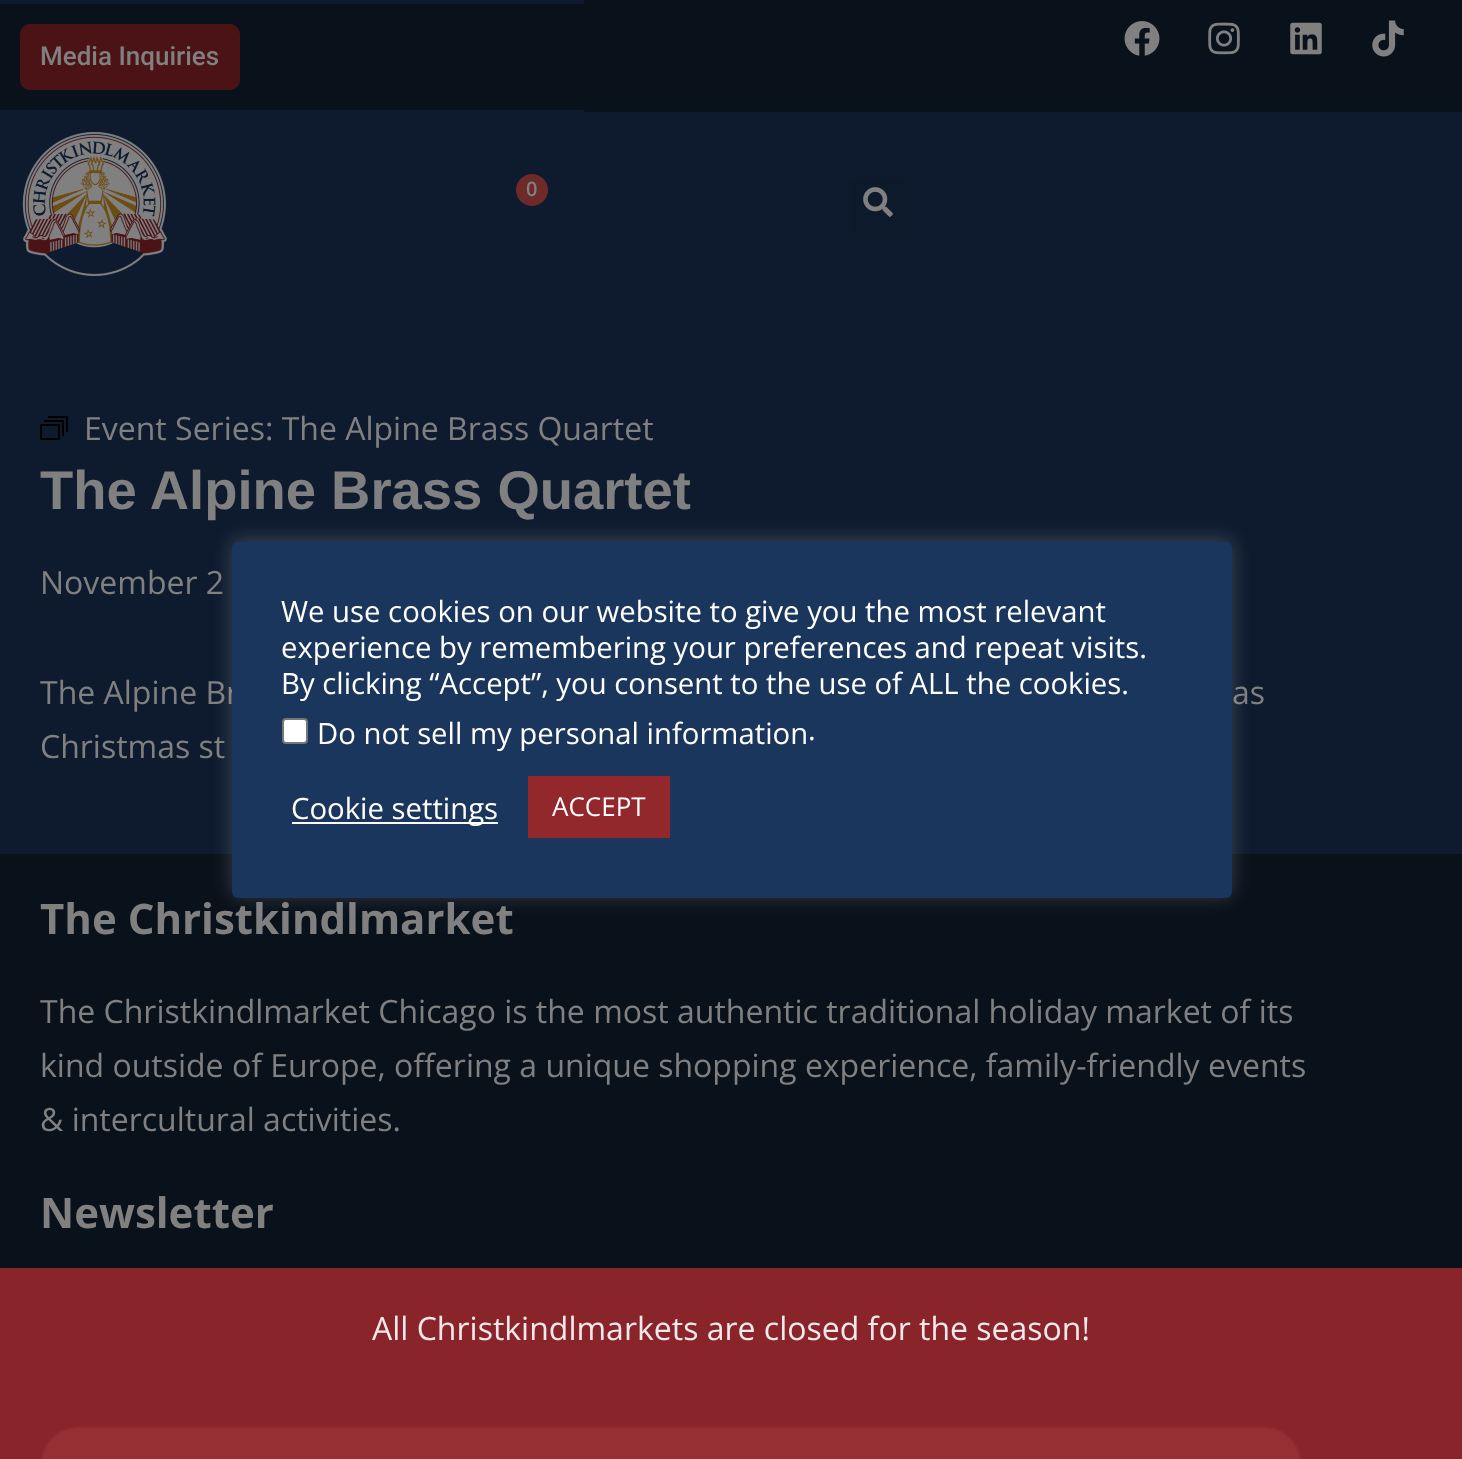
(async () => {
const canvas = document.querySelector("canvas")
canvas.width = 1462
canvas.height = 1459
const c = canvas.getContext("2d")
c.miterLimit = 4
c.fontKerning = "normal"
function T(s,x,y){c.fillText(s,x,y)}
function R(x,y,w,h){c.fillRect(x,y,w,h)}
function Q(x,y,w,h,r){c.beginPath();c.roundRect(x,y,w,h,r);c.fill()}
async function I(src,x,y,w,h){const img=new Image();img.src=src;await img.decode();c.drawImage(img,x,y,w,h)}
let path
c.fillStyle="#0e1b2f"
R(0,0,1462,1459)
c.fillStyle="#09111b"
R(0,4,584,106)
c.fillStyle="#4c1316"
Q(20,24,220,66,10)
c.font="500 26px Roboto"
c.fillStyle="#808080"
T("Media Inquiries",40,65)
c.fillStyle="#09111b"
R(584,0,878,112)
await I("1.png",1124,21,36,35)
await I("2.png",1208,22,32,33)
await I("3.png",1290,22,32,33)
await I("4.png",1372,20,32,37)
await I("5.png",22,132,145,144)
c.fillStyle="#6d2a28"
c.beginPath()
c.arc(532,190,16,0,7)
c.fill()
c.font="600 20px Open Sans"
c.fillStyle="#808080"
T("0",526,196)
c.fillStyle="#0d1a2c"
Q(850,178,54,54,6)
await I("6.png",863,187,30,30)
c.strokeStyle="#000"
c.lineWidth=2
c.strokeRect(41,425,18,14)
path = new Path2D("M44 421h19v15m-15-19h19v15")
c.stroke(path)
c.font="32px Open Sans"
c.fillStyle="#808080"
T("Event Series: The Alpine Brass Quartet",84,440)
c.font="bold 54.4px Liberation Sans"
T("The Alpine Brass Quartet",40,509)
c.font="32px Open Sans"
T("November 2",40,594)
T("The Alpine Br",40,704)
T("as",1232,704)
T("Christmas st",40,758)
c.fillStyle="#09111b"
R(0,854,1462,414)
c.fillStyle="#89242a"
R(0,1268,1462,191)
c.font="bold 42px Open Sans"
c.fillStyle="#808080"
T("The Christkindlmarket",40,934)
c.font="32px Open Sans"
T("The Christkindlmarket Chicago is the most authentic traditional holiday market of its",40,1023)
T("kind outside of Europe, offering a unique shopping experience, family-friendly events",40,1077)
T("& intercultural activities.",40,1131)
c.font="bold 42px Open Sans"
T("Newsletter",40,1228)
c.fillStyle="#952f34"
c.beginPath()
c.roundRect(41,1427,1260,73,39)
c.fill()
c.strokeStyle="#8d282e"
c.stroke()
c.fillStyle="#acabab4d"
c.filter="blur(10px)"
c.beginPath()
c.roundRect(232,540,1000,356,6)
c.fill()
c.filter="none"
c.fillStyle="#1b365d"
Q(232,542,1000,356,6)
c.font="29.3px Open Sans"
c.fillStyle="#fff"
T("We use cookies on our website to give you the most relevant",281,622)
T("experience by remembering your preferences and repeat visits.",281,658)
T("By clicking “Accept”, you consent to the use of ALL the cookies.",281,694)
c.beginPath()
c.roundRect(283,719,24,24,3)
c.fill()
c.strokeStyle="#767676"
c.stroke()
T("Do not sell my personal information",317,744)
T(".",808,740)
R(292,822,206,2)
T("Cookie settings",291,819)
c.fillStyle="#93282c"
R(528,776,142,62)
c.font="26px Open Sans"
c.fillStyle="#fff"
T("ACCEPT",552,816)
c.font="32px Open Sans"
c.fillStyle="#f3e9ea"
T("All Christkindlmarkets are closed for the season!",372,1340)
})()
